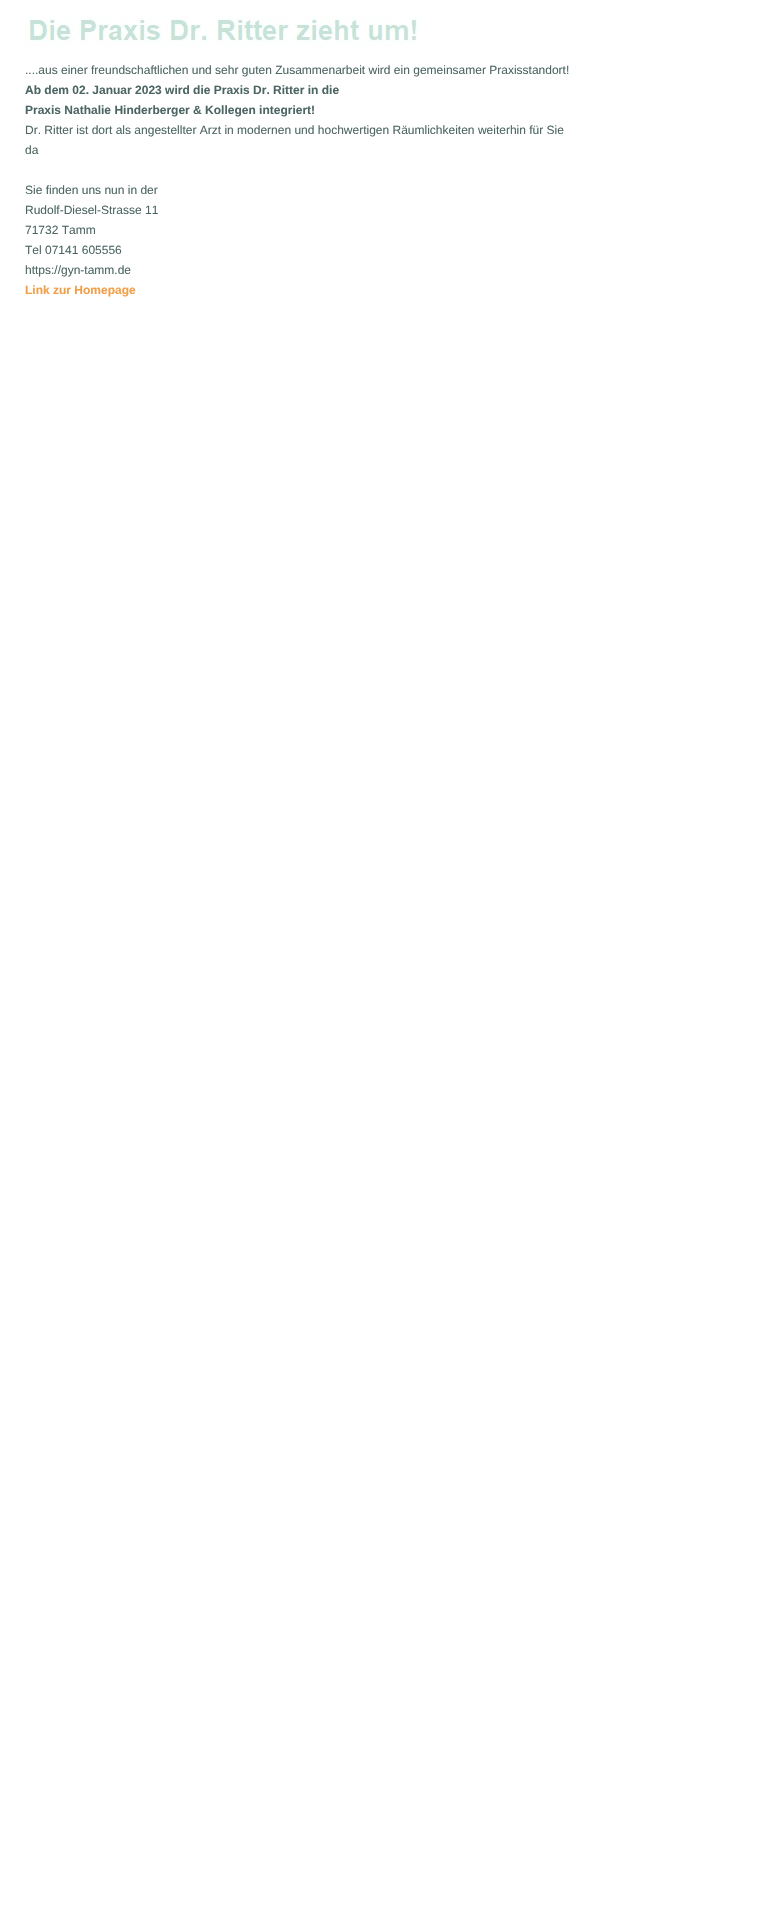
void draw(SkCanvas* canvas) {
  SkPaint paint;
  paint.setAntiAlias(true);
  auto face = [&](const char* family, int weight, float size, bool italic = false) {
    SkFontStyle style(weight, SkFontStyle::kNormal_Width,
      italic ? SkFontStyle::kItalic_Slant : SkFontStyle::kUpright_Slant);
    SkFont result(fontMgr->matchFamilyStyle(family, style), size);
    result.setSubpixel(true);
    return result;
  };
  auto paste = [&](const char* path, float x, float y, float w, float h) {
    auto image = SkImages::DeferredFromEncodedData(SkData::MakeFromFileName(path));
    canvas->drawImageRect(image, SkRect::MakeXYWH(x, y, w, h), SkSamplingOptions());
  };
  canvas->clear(0xffffffff);
  paste("img/1.png", 25, 15, 393, 32);
  auto f0 = face("Liberation Sans", 400, 12);
  paint.setColor(0xff4c6663);
  canvas->drawString("....aus einer freundschaftlichen und sehr guten Zusammenarbeit wird ein gemeinsamer Praxisstandort!", 25, 74, f0, paint);
  auto f1 = face("Liberation Sans", 700, 12);
  canvas->drawString("Ab dem 02. Januar 2023 wird die Praxis Dr. Ritter in die", 25, 94, f1, paint);
  canvas->drawString("Praxis Nathalie Hinderberger & Kollegen integriert!", 25, 114, f1, paint);
  {
    const struct { const char* s; float x, y; } items[] = {
      {"Dr. Ritter ist dort als angestellter Arzt in modernen und hochwertigen Räumlichkeiten weiterhin für Sie", 25, 134},
      {"da", 25, 154},
      {"Sie finden uns nun in der", 25, 194},
      {"Rudolf-Diesel-Strasse 11", 25, 214},
      {"71732 Tamm", 25, 234},
      {"Tel 07141 605556", 25, 254},
      {"https://gyn-tamm.de", 25, 274},
    };
    for (auto [s, x, y] : items) {
      canvas->drawString(s, x, y, f0, paint);
    }
  }
  paint.setColor(0xfff19f48);
  canvas->drawString("Link zur Homepage", 25, 294, f1, paint);
}
